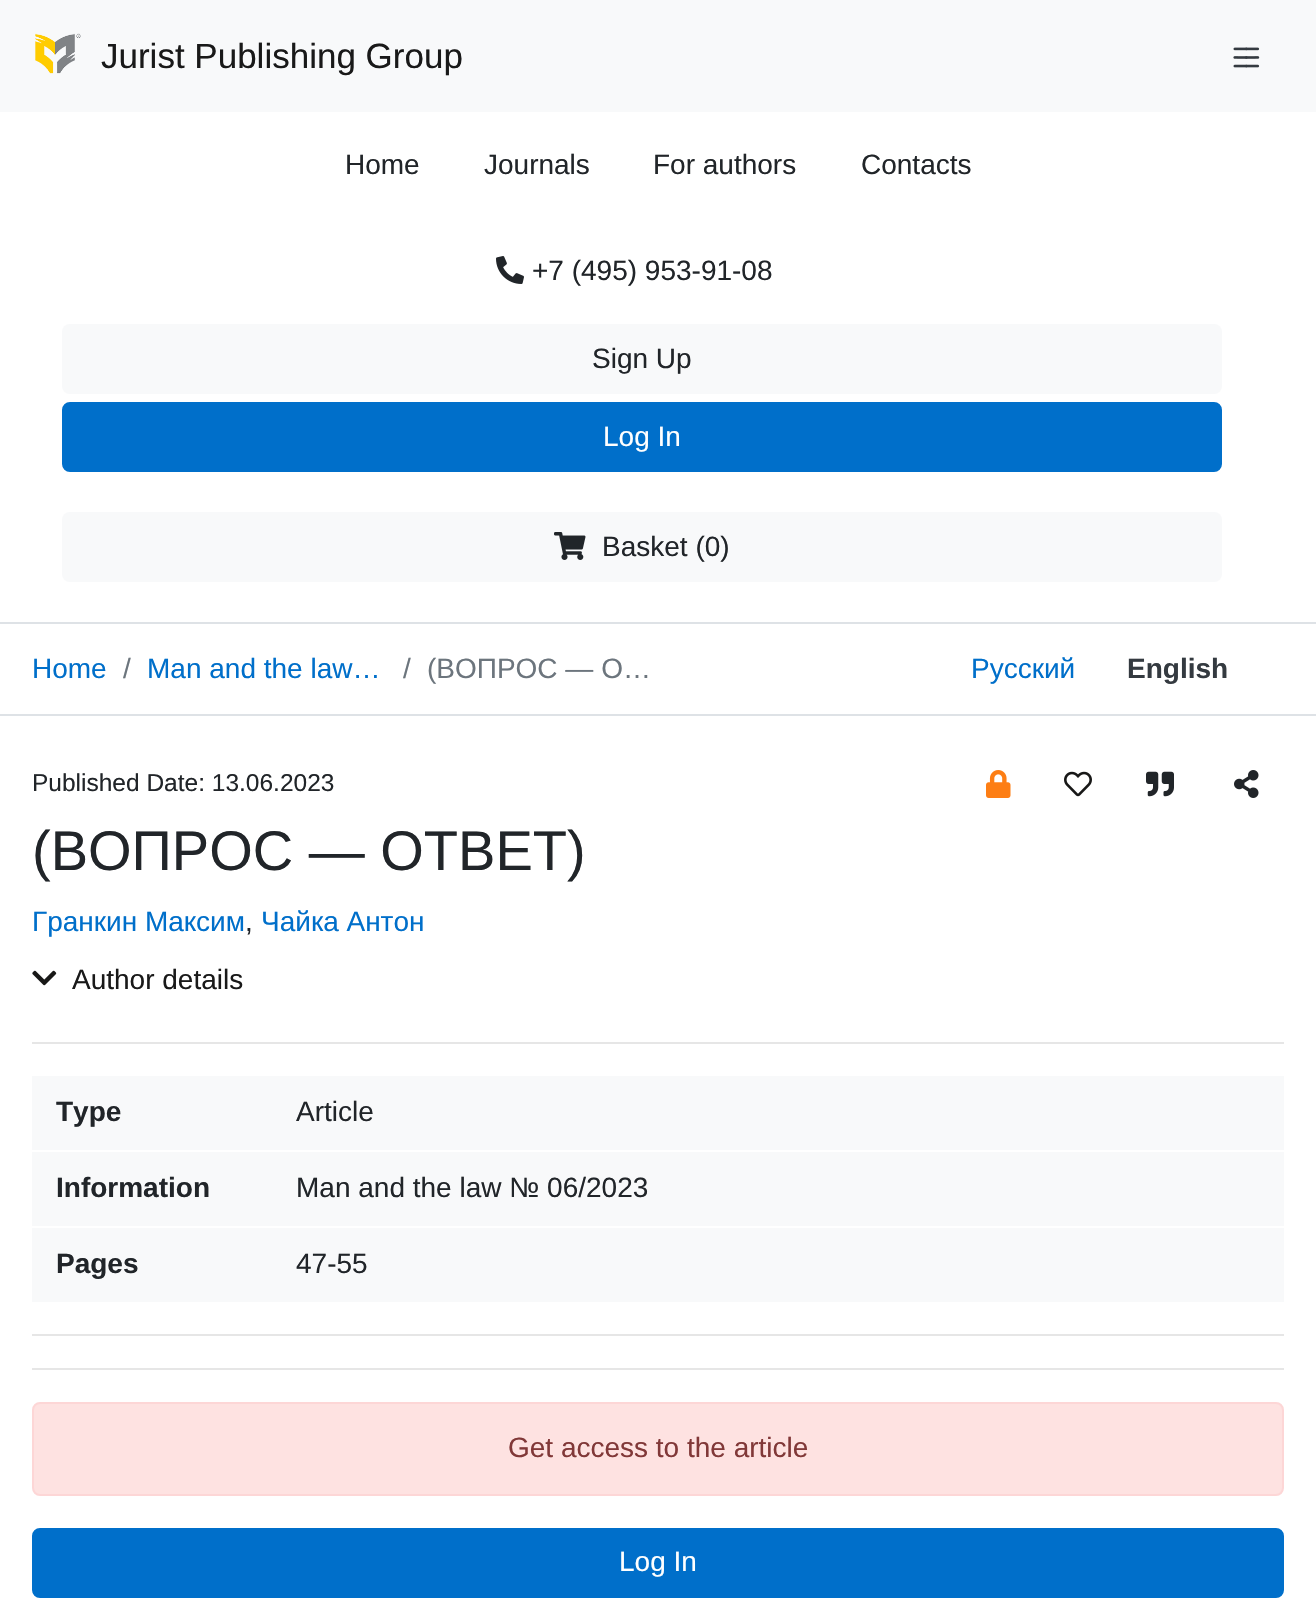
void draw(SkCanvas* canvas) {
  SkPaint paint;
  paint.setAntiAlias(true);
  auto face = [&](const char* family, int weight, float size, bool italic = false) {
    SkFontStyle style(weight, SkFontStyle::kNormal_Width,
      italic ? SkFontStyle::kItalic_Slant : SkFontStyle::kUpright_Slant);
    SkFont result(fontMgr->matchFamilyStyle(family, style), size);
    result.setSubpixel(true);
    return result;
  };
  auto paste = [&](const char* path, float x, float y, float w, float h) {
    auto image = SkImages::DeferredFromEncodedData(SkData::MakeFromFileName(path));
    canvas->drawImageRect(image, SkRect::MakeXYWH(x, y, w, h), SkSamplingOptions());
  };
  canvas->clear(0xffffffff);
  paint.setColor(0xfff8f9fa);
  canvas->drawRect(SkRect::MakeXYWH(0, 0, 1316, 112), paint);
  paste("img/1.png", 35, 33, 46, 41);
  paste("img/2.png", 1233, 47, 27, 21);
  paste("img/3.png", 496, 256, 28, 28);
  canvas->drawRoundRect(SkRect::MakeXYWH(62, 324, 1160, 70), 8, 8, paint);
  paint.setColor(0xff006fca);
  canvas->drawRoundRect(SkRect::MakeXYWH(63, 403, 1158, 68), 7, 7, paint);
  paint.setStroke(true);
  paint.setStrokeWidth(2);
  canvas->drawRoundRect(SkRect::MakeXYWH(63, 403, 1158, 68), 7, 7, paint);
  paint.setStroke(false);
  paint.setColor(0xfff8f9fa);
  canvas->drawRoundRect(SkRect::MakeXYWH(62, 512, 1160, 70), 8, 8, paint);
  paste("img/4.png", 554, 532, 32, 28);
  paint.setColor(0xffdee2e6);
  canvas->drawRect(SkRect::MakeXYWH(0, 622, 1316, 2), paint);
  canvas->drawRect(SkRect::MakeXYWH(0, 714, 1316, 2), paint);
  paste("img/5.png", 986, 770, 25, 28);
  paste("img/6.png", 1064, 771, 28, 26);
  paste("img/7.png", 1146, 771, 28, 26);
  paste("img/8.png", 1234, 770, 25, 28);
  paste("img/9.png", 32, 970, 25, 16);
  {
    const struct { float x, y, w, h; SkColor color; } items[] = {
      {32, 1042, 1252, 2, 0xffe6e6e6},
      {32, 1076, 1252, 226, 0xfff8f9fa},
      {32, 1150, 1254, 2, 0xffffffff},
      {32, 1226, 1254, 2, 0xffffffff},
      {32, 1334, 1252, 2, 0xffe6e6e6},
      {32, 1368, 1252, 2, 0xffe6e6e6},
    };
    for (auto [x, y, w, h, color] : items) {
      paint.setColor(color);
      canvas->drawRect(SkRect::MakeXYWH(x, y, w, h), paint);
    }
  }
  paint.setColor(0xfffee2e1);
  canvas->drawRoundRect(SkRect::MakeXYWH(33, 1403, 1250, 92), 7, 7, paint);
  paint.setStroke(true);
  paint.setColor(0xfffdd6d6);
  canvas->drawRoundRect(SkRect::MakeXYWH(33, 1403, 1250, 92), 7, 7, paint);
  paint.setStroke(false);
  paint.setColor(0xff006fca);
  canvas->drawRoundRect(SkRect::MakeXYWH(33, 1529, 1250, 68), 7, 7, paint);
  paint.setStroke(true);
  canvas->drawRoundRect(SkRect::MakeXYWH(33, 1529, 1250, 68), 7, 7, paint);
  auto f0 = face("Liberation Sans", 400, 35);
  paint.setStroke(false);
  paint.setColor(0xff191919);
  canvas->drawString("Jurist Publishing Group", 101, 68, f0, paint);
  auto f1 = face("Liberation Sans", 400, 28);
  paint.setColor(0xff212529);
  {
    const struct { const char* s; float x, y; } items[] = {
      {"Home", 345, 174},
      {"Journals", 484, 174},
      {"For authors", 653, 174},
      {"Contacts", 861, 174},
      {"+7 (495) 953-91-08", 532, 280},
      {"Sign Up", 592, 368},
    };
    for (auto [s, x, y] : items) {
      canvas->drawString(s, x, y, f1, paint);
    }
  }
  paint.setColor(0xffffffff);
  canvas->drawString("Log In", 603, 446, f1, paint);
  paint.setColor(0xff212529);
  canvas->drawString("Basket (0)", 602, 556, f1, paint);
  paint.setColor(0xff006fca);
  canvas->drawString("Home", 32, 678, f1, paint);
  paint.setColor(0xff6c757d);
  canvas->drawString("/", 123, 678, f1, paint);
  paint.setColor(0xff006fca);
  canvas->drawString("Man and the law…", 147, 678, f1, paint);
  paint.setColor(0xff6c757d);
  canvas->drawString("/", 403, 678, f1, paint);
  canvas->drawString("(ВОПРОС — О…", 427, 678, f1, paint);
  paint.setColor(0xff006fca);
  canvas->drawString("Русский", 971, 678, f1, paint);
  auto f2 = face("Liberation Sans", 700, 28);
  paint.setColor(0xff343a40);
  canvas->drawString("English", 1127, 678, f2, paint);
  auto f3 = face("Liberation Sans", 400, 24.5f);
  paint.setColor(0xff212529);
  canvas->drawString("Published Date: 13.06.2023", 32, 791, f3, paint);
  auto f4 = face("Liberation Sans", 400, 56);
  canvas->drawString("(ВОПРОС — ОТВЕТ)", 32, 870, f4, paint);
  paint.setColor(0xff006fca);
  canvas->drawString("Гранкин Максим", 32, 931, f1, paint);
  paint.setColor(0xff212529);
  canvas->drawString(",", 245, 931, f1, paint);
  paint.setColor(0xff006fca);
  canvas->drawString("Чайка Антон", 261, 931, f1, paint);
  paint.setColor(0xff191919);
  canvas->drawString("Author details", 72, 989, f1, paint);
  paint.setColor(0xff212529);
  canvas->drawString("Type", 56, 1121, f2, paint);
  canvas->drawString("Article", 296, 1121, f1, paint);
  canvas->drawString("Information", 56, 1197, f2, paint);
  canvas->drawString("Man and the law № 06/2023", 296, 1197, f1, paint);
  canvas->drawString("Pages", 56, 1273, f2, paint);
  canvas->drawString("47-55", 296, 1273, f1, paint);
  paint.setColor(0xff813838);
  canvas->drawString("Get access to the article", 508, 1457, f1, paint);
  paint.setColor(0xffffffff);
  canvas->drawString("Log In", 619, 1571, f1, paint);
}
